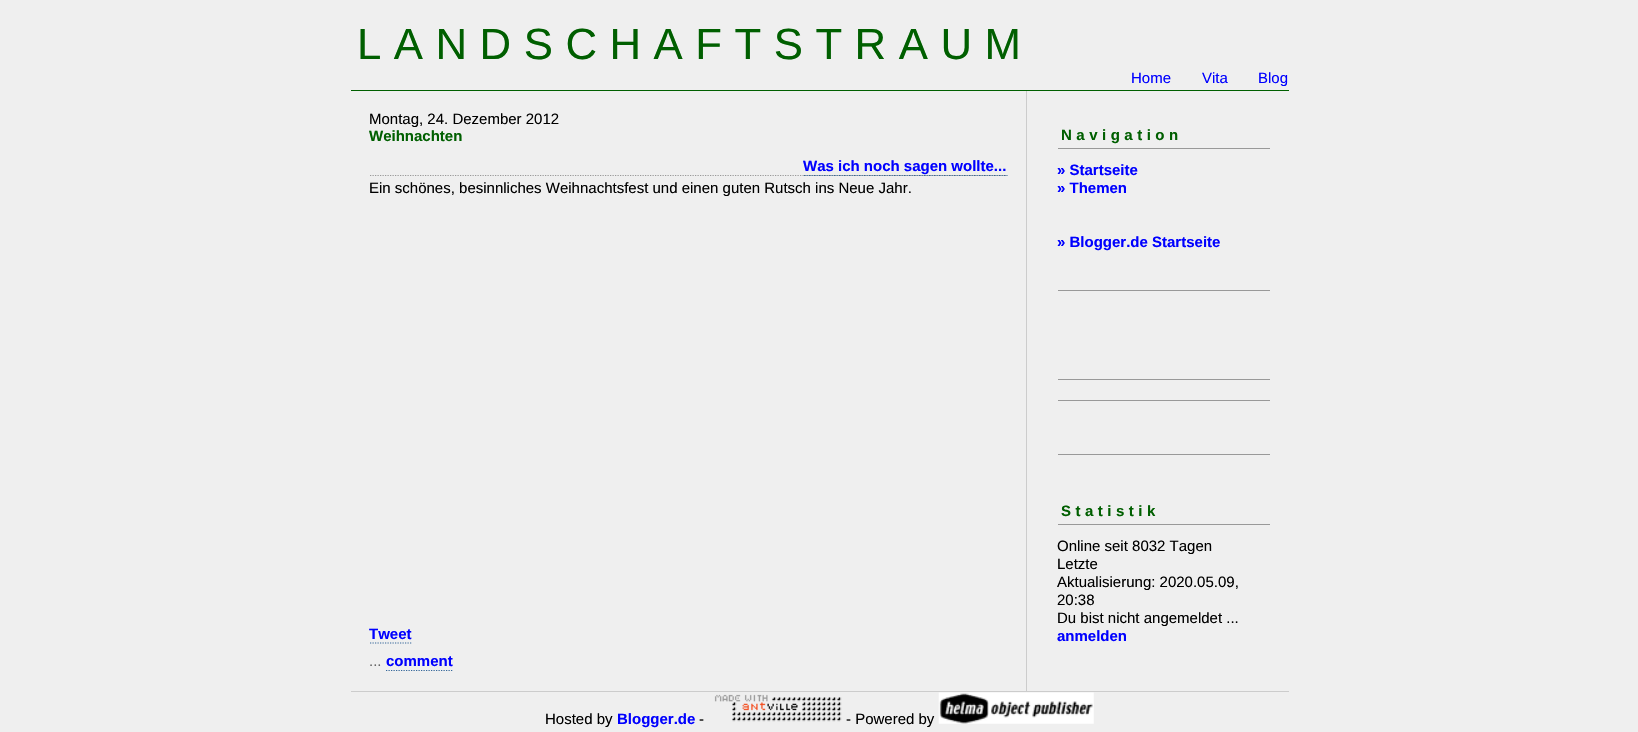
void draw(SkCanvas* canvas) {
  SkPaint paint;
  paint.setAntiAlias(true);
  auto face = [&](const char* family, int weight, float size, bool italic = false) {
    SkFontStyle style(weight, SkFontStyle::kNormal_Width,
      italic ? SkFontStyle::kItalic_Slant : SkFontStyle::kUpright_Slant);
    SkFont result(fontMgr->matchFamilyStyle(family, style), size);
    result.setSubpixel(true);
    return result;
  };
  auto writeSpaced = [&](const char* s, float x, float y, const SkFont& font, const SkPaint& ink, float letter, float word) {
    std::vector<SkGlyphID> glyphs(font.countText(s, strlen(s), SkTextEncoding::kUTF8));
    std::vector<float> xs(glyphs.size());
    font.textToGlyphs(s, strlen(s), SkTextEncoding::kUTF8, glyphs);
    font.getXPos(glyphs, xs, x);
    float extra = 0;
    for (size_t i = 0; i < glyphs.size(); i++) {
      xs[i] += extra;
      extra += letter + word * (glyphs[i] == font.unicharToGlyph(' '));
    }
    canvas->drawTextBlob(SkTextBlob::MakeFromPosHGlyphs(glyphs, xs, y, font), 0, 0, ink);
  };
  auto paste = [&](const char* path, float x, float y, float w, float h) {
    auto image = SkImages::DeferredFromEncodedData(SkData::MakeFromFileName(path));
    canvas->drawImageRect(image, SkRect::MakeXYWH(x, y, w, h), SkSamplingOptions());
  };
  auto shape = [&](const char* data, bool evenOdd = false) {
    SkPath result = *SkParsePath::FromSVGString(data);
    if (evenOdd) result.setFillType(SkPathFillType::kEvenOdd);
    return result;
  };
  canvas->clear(0xffefefef);
  paint.setColor(0xff005f00);
  canvas->drawRect(SkRect::MakeXYWH(351, 90, 938, 1), paint);
  paint.setColor(0xffcccccc);
  canvas->drawRect(SkRect::MakeXYWH(1026, 91, 1, 600), paint);
  paint.setStroke(true);
  paint.setStrokeWidth(1.2f);
  paint.setColor(0xff999999);
  paint.setPathEffect(SkDashPathEffect::Make({{1.25f, 1.25f}}, 0));
  canvas->drawPath(shape("M370 175.5H1007.5"), paint);
  paint.setPathEffect(nullptr);
  paint.setColor(0xff336699);
  paint.setPathEffect(SkDashPathEffect::Make({{1.25f, 1.25f}}, 0));
  canvas->drawPath(shape("M804 175.5H1007.5"), paint);
  paint.setPathEffect(nullptr);
  paint.setPathEffect(SkDashPathEffect::Make({{1.25f, 1.25f}}, 0));
  canvas->drawPath(shape("M370 643H412.5"), paint);
  paint.setPathEffect(nullptr);
  paint.setPathEffect(SkDashPathEffect::Make({{1.25f, 1.25f}}, 0));
  canvas->drawPath(shape("M386 670.5H452.5"), paint);
  paint.setPathEffect(nullptr);
  paint.setStroke(false);
  {
    const struct { float x, y, w, h; SkColor color; } items[] = {
      {1058, 148, 212, 1, 0xff999999},
      {1058, 290, 212, 1, 0xff999999},
      {1058, 379, 212, 1, 0xff999999},
      {1058, 400, 212, 1, 0xff999999},
      {1058, 454, 212, 1, 0xff999999},
      {1058, 524, 212, 1, 0xff999999},
      {351, 691, 938, 1, 0xffcccccc},
    };
    for (auto [x, y, w, h, color] : items) {
      paint.setColor(color);
      canvas->drawRect(SkRect::MakeXYWH(x, y, w, h), paint);
    }
  }
  paste("img/1.png", 714, 694, 128, 28);
  paste("img/2.png", 938, 692, 156, 32);
  auto f0 = face("Liberation Sans", 400, 43.75f);
  paint.setColor(0xff005f00);
  writeSpaced("LANDSCHAFTSTRAUM", 357, 59, f0, paint, 12.5f, 0);
  auto f1 = face("Liberation Sans", 400, 15);
  paint.setColor(0xff0000ff);
  {
    const struct { const char* s; float x, y; } items[] = {
      {"Home", 1131, 83},
      {"Vita", 1202, 83},
      {"Blog", 1258, 83},
    };
    for (auto [s, x, y] : items) {
      canvas->drawString(s, x, y, f1, paint);
    }
  }
  paint.setColor(0xff000000);
  canvas->drawString("Montag, 24. Dezember 2012", 369, 124, f1, paint);
  auto f2 = face("Liberation Sans", 700, 15);
  paint.setColor(0xff005f00);
  canvas->drawString("Weihnachten", 369, 141, f2, paint);
  paint.setColor(0xff0000ff);
  canvas->drawString("Was ich noch sagen wollte...", 803, 171, f2, paint);
  paint.setColor(0xff000000);
  canvas->drawString("Ein schönes, besinnliches Weihnachtsfest und einen guten Rutsch ins Neue Jahr.", 369, 193, f1, paint);
  paint.setColor(0xff0000ff);
  canvas->drawString("Tweet", 369, 639, f2, paint);
  paint.setColor(0xff666666);
  canvas->drawString("...", 369, 666, f1, paint);
  paint.setColor(0xff0000ff);
  canvas->drawString("comment", 386, 666, f2, paint);
  paint.setColor(0xff005f00);
  writeSpaced("Navigation", 1061, 140, f2, paint, 4.5f, 0);
  paint.setColor(0xff0000ff);
  {
    const struct { const char* s; float x, y; } items[] = {
      {"» Startseite", 1057, 175},
      {"» Themen", 1057, 193},
      {"» Blogger.de Startseite", 1057, 247},
    };
    for (auto [s, x, y] : items) {
      canvas->drawString(s, x, y, f2, paint);
    }
  }
  paint.setColor(0xff005f00);
  writeSpaced("Statistik", 1061, 516, f2, paint, 4.5f, 0);
  paint.setColor(0xff000000);
  {
    const struct { const char* s; float x, y; } items[] = {
      {"Online seit 8032 Tagen", 1057, 551},
      {"Letzte", 1057, 569},
      {"Aktualisierung: 2020.05.09,", 1057, 587},
      {"20:38", 1057, 605},
      {"Du bist nicht angemeldet ...", 1057, 623},
    };
    for (auto [s, x, y] : items) {
      canvas->drawString(s, x, y, f1, paint);
    }
  }
  paint.setColor(0xff0000ff);
  canvas->drawString("anmelden", 1057, 641, f2, paint);
  paint.setColor(0xff000000);
  canvas->drawString("Hosted by", 545, 724, f1, paint);
  paint.setColor(0xff0000ff);
  canvas->drawString("Blogger.de", 617, 724, f2, paint);
  paint.setColor(0xff000000);
  canvas->drawString("-", 699, 724, f1, paint);
  canvas->drawString("- Powered by", 846, 724, f1, paint);
}
